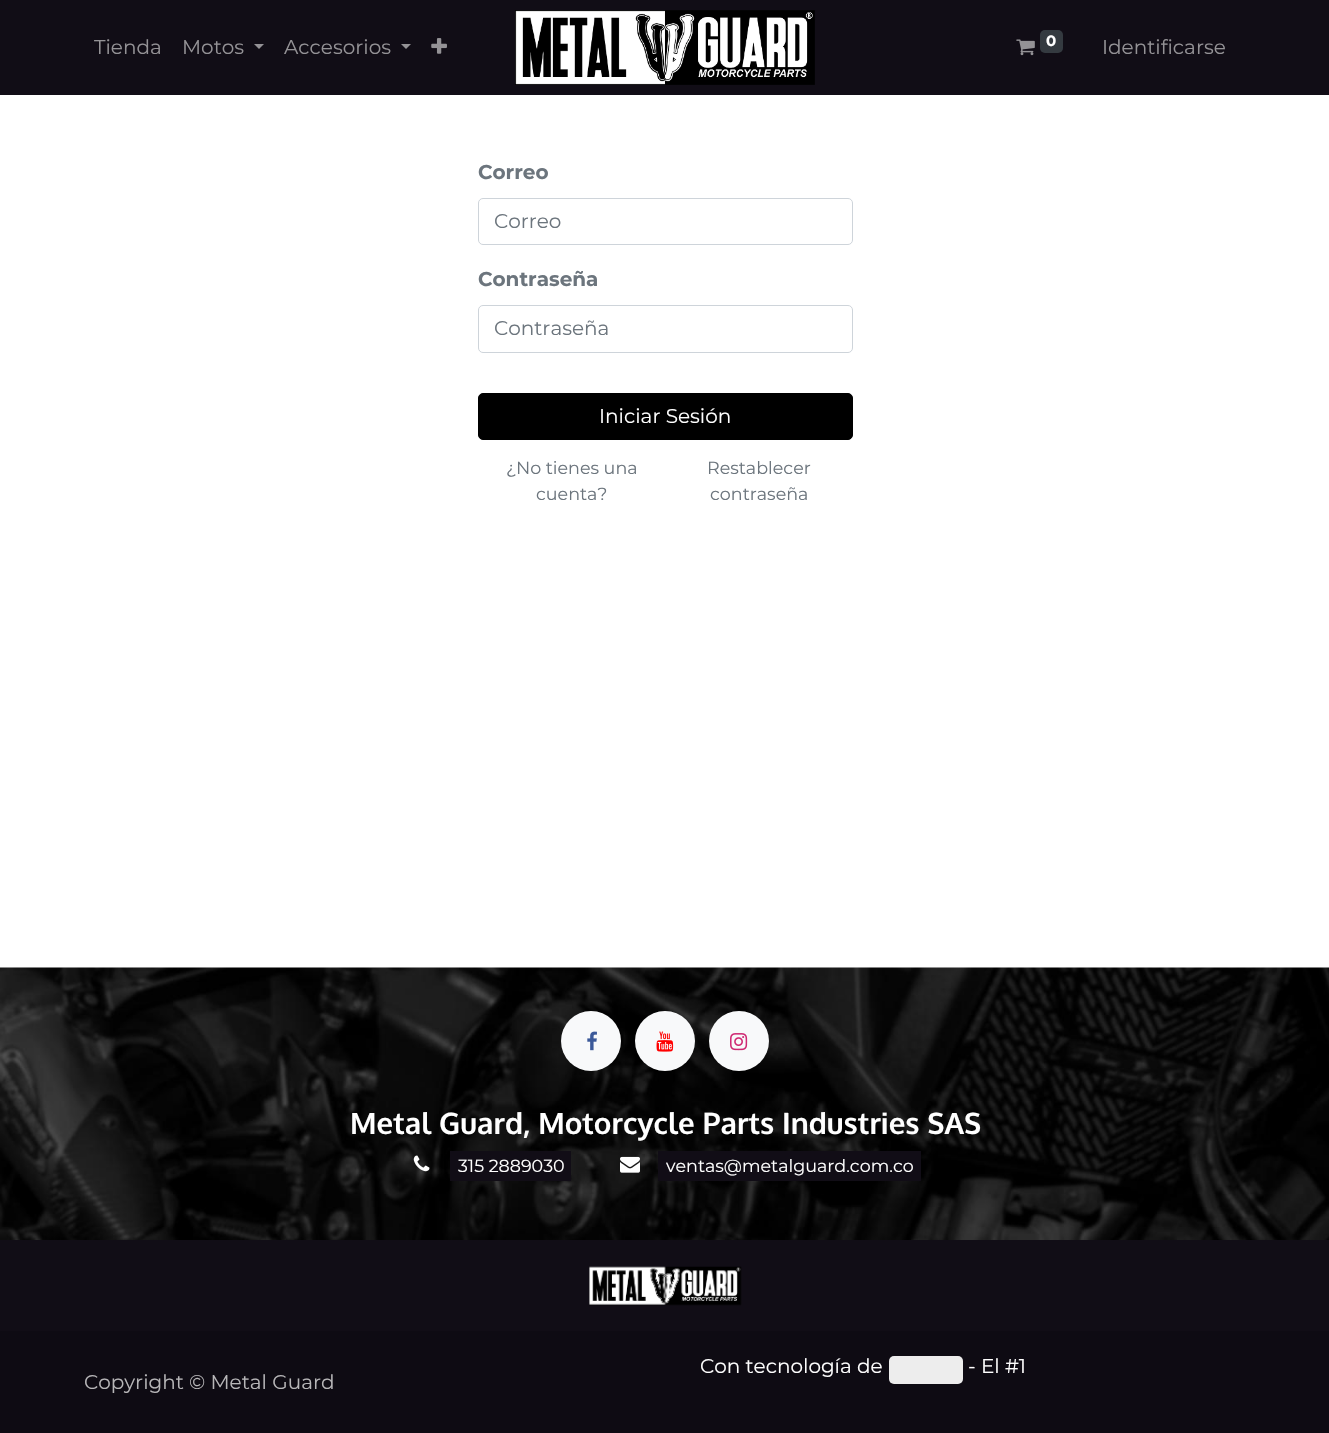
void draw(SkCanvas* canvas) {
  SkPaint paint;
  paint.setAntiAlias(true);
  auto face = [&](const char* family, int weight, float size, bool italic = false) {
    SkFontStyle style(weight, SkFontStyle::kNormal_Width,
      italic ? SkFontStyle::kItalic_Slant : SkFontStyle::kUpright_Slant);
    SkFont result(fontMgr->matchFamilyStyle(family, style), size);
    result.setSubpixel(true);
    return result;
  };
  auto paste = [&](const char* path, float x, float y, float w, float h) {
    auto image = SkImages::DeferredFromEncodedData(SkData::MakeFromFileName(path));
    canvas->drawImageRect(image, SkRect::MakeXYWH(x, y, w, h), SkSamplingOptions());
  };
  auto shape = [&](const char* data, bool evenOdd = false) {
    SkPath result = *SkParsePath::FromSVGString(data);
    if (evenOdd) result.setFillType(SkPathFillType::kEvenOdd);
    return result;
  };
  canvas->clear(0xffffffff);
  paint.setColor(0xff110d16);
  canvas->drawRect(SkRect::MakeXYWH(0, 0, 1329, 95), paint);
  paint.setColor(0xff949296);
  canvas->drawPath(shape("M254 44H264L259 49Z"), paint);
  canvas->drawPath(shape("M401 44H411L406 49Z"), paint);
  paste("img/1.png", 431, 38, 16, 16);
  paste("img/2.png", 515, 10, 300, 75);
  paste("img/3.png", 1016, 39, 19, 17);
  paint.setColor(0xff343a40);
  canvas->drawRoundRect(SkRect::MakeXYWH(1040, 30, 23, 23), 5, 5, paint);
  paint.setStroke(true);
  paint.setStrokeWidth(1);
  paint.setColor(0xffced4da);
  canvas->drawRoundRect(SkRect::MakeXYWH(478.5f, 198.5f, 374, 46), 4.5f, 4.5f, paint);
  canvas->drawRoundRect(SkRect::MakeXYWH(478.5f, 305.5f, 374, 47), 4.5f, 4.5f, paint);
  paint.setStroke(false);
  paint.setColor(0xff000000);
  canvas->drawRoundRect(SkRect::MakeXYWH(478.5f, 393.5f, 374, 46), 4.5f, 4.5f, paint);
  paint.setStroke(true);
  canvas->drawRoundRect(SkRect::MakeXYWH(478.5f, 393.5f, 374, 46), 4.5f, 4.5f, paint);
  paint.setStroke(false);
  paint.setColor(0xff110d16);
  canvas->drawRect(SkRect::MakeXYWH(0, 1240, 1329, 91), paint);
  paste("img/4.png", 0, 967, 1329, 273);
  paint.setColor(0xfff8f9fa);
  canvas->drawCircle(591, 1041, 30, paint);
  paste("img/5.png", 587, 1031, 10, 20);
  canvas->drawCircle(665, 1041, 30, paint);
  paste("img/6.png", 656, 1031, 18, 21);
  canvas->drawCircle(739, 1041, 30, paint);
  paste("img/7.png", 730, 1033, 18, 18);
  paste("img/8.png", 413, 1155, 17, 17);
  paint.setColor(0xff110d16);
  canvas->drawRect(SkRect::MakeXYWH(450, 1151, 121, 30), paint);
  paste("img/9.png", 620, 1156, 20, 17);
  canvas->drawRect(SkRect::MakeXYWH(658, 1151, 263, 30), paint);
  paste("img/10.png", 589, 1266, 153, 40);
  paint.setColor(0xff0e0b13);
  canvas->drawRect(SkRect::MakeXYWH(0, 1331, 1329, 102), paint);
  paint.setColor(0xffededed);
  canvas->drawRoundRect(SkRect::MakeXYWH(889, 1356, 74, 28), 5, 5, paint);
  auto f0 = face("Montserrat", 400, 20);
  paint.setColor(0xff949296);
  {
    const struct { const char* s; float x, y; } items[] = {
      {"Tienda", 94, 54},
      {"Motos", 182, 54},
      {"Accesorios", 284, 54},
    };
    for (auto [s, x, y] : items) {
      canvas->drawString(s, x, y, f0, paint);
    }
  }
  auto f1 = face("Montserrat", 700, 15);
  paint.setColor(0xffffffff);
  canvas->drawString("0", 1046, 46, f1, paint);
  paint.setColor(0xff949296);
  canvas->drawString("Identificarse", 1102, 54, f0, paint);
  auto f2 = face("Montserrat", 700, 20);
  paint.setColor(0xff6c757d);
  canvas->drawString("Correo", 478, 179, f2, paint);
  canvas->drawString("Correo", 494, 228, f0, paint);
  canvas->drawString("Contraseña", 478, 286, f2, paint);
  canvas->drawString("Contraseña", 494, 335, f0, paint);
  paint.setColor(0xffffffff);
  canvas->drawString("Iniciar Sesión", 599, 423, f0, paint);
  auto f3 = face("Montserrat", 400, 17.5f);
  paint.setColor(0xff6c757d);
  {
    const struct { const char* s; float x, y; } items[] = {
      {"¿No tienes una", 506, 474},
      {"cuenta?", 536, 500},
      {"Restablecer", 707, 474},
      {"contraseña", 710, 500},
    };
    for (auto [s, x, y] : items) {
      canvas->drawString(s, x, y, f3, paint);
    }
  }
  auto f4 = face("Oxygen", 700, 29.5f);
  paint.setColor(0xffffffff);
  canvas->drawString("Metal Guard, Motorcycle Parts Industries SAS", 350, 1134, f4, paint);
  canvas->drawString("315 2889030", 458, 1172, f3, paint);
  canvas->drawString("ventas@metalguard.com.co", 666, 1172, f3, paint);
  canvas->drawString("Con tecnología de", 700, 1373, f0, paint);
  canvas->drawString("- El #1", 968, 1373, f0, paint);
  paint.setColor(0xffb7b6b8);
  canvas->drawString("Copyright © Metal Guard", 84, 1389, f0, paint);
}
